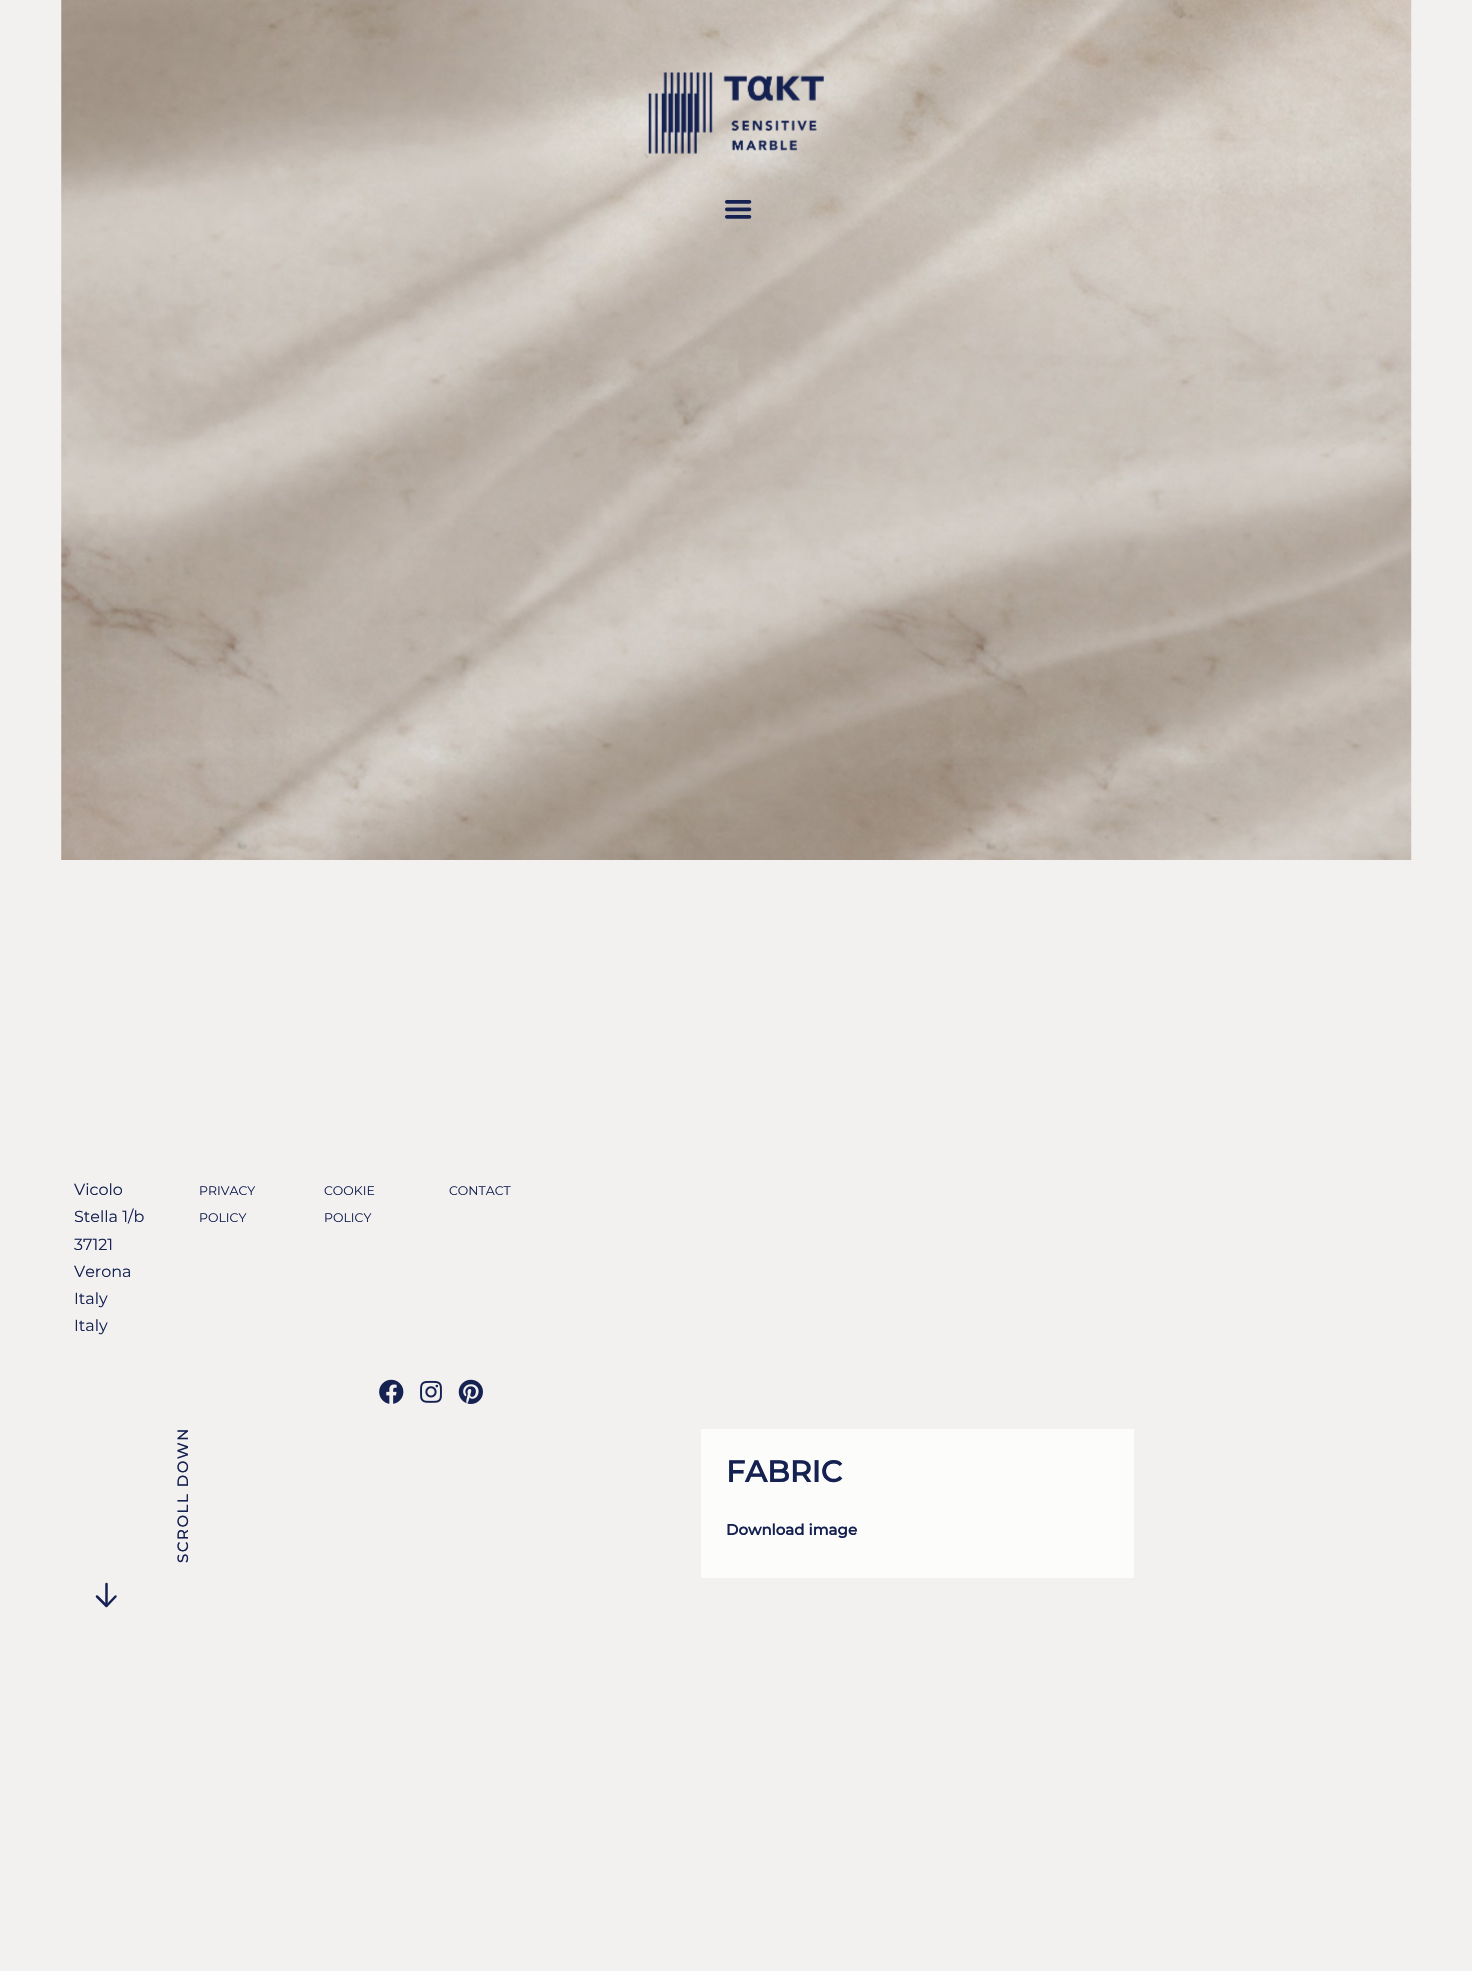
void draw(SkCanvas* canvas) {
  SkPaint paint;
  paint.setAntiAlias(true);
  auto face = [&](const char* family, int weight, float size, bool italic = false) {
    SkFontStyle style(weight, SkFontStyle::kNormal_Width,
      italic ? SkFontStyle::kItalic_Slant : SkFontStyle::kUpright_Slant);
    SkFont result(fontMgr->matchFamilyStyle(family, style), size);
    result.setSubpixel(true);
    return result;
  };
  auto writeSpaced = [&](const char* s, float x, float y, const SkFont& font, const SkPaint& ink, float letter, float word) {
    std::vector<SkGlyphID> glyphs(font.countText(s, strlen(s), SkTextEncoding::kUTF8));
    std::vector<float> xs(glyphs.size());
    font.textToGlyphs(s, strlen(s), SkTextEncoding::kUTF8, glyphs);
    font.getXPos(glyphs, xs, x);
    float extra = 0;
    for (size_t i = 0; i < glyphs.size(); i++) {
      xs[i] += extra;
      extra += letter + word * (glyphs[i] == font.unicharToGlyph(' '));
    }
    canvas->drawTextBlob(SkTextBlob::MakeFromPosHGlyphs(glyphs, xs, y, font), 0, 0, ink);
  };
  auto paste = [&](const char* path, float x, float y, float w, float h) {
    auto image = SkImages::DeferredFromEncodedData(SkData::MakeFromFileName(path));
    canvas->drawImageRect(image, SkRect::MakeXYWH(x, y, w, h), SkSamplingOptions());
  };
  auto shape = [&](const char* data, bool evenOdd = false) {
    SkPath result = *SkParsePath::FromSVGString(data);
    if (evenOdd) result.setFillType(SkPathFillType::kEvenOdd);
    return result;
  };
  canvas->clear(0xfff3f1f0);
  paste("img/6.png", 61, 0, 1351, 860);
  paste("img/1.png", 648, 72, 176, 82);
  paste("img/2.png", 725, 200, 27, 19);
  paste("img/3.png", 379, 1379, 25, 25);
  paste("img/4.png", 420, 1380, 22, 23);
  paste("img/5.png", 458, 1379, 25, 25);
  paint.setStroke(true);
  paint.setStrokeWidth(2.5f);
  paint.setStrokeCap(SkPaint::kRound_Cap);
  paint.setStrokeJoin(SkPaint::kRound_Join);
  paint.setColor(0xff142151);
  canvas->drawPath(shape("M97 1596.5L106.5 1606L115.5 1596.5"), paint);
  paint.setStrokeJoin(SkPaint::kMiter_Join);
  canvas->drawPath(shape("M106.5 1584V1603"), paint);
  paint.setStroke(false);
  paint.setColor(0xfffcfcfb);
  canvas->drawRect(SkRect::MakeXYWH(701, 1429, 433, 149), paint);
  auto f0 = face("Montserrat", 400, 16);
  paint.setColor(0xff142151);
  {
    const struct { const char* s; float x, y; } items[] = {
      {"Vicolo", 74, 1195},
      {"Stella 1/b", 74, 1222},
      {"37121", 74, 1250},
      {"Verona", 74, 1277},
      {"Italy", 74, 1304},
      {"Italy", 74, 1331},
    };
    for (auto [s, x, y] : items) {
      canvas->drawString(s, x, y, f0, paint);
    }
  }
  auto f1 = face("Montserrat", 400, 12.5f);
  {
    const struct { const char* s; float x, y; } items[] = {
      {"PRIVACY", 199, 1195},
      {"POLICY", 199, 1222},
      {"COOKIE", 324, 1195},
      {"POLICY", 324, 1222},
      {"CONTACT", 449, 1195},
    };
    for (auto [s, x, y] : items) {
      canvas->drawString(s, x, y, f1, paint);
    }
  }
  auto f2 = face("Montserrat", 500, 15);
  canvas->save();
  canvas->rotate(-90, 188, 1563);
  writeSpaced("SCROLL DOWN", 188, 1563, f2, paint, 1.5f, 0);
  canvas->restore();
  auto f3 = face("Montserrat", 700, 30);
  canvas->drawString("FABRIC", 726, 1482, f3, paint);
  auto f4 = face("Montserrat", 700, 15);
  canvas->drawString("Download image", 726, 1535, f4, paint);
}
